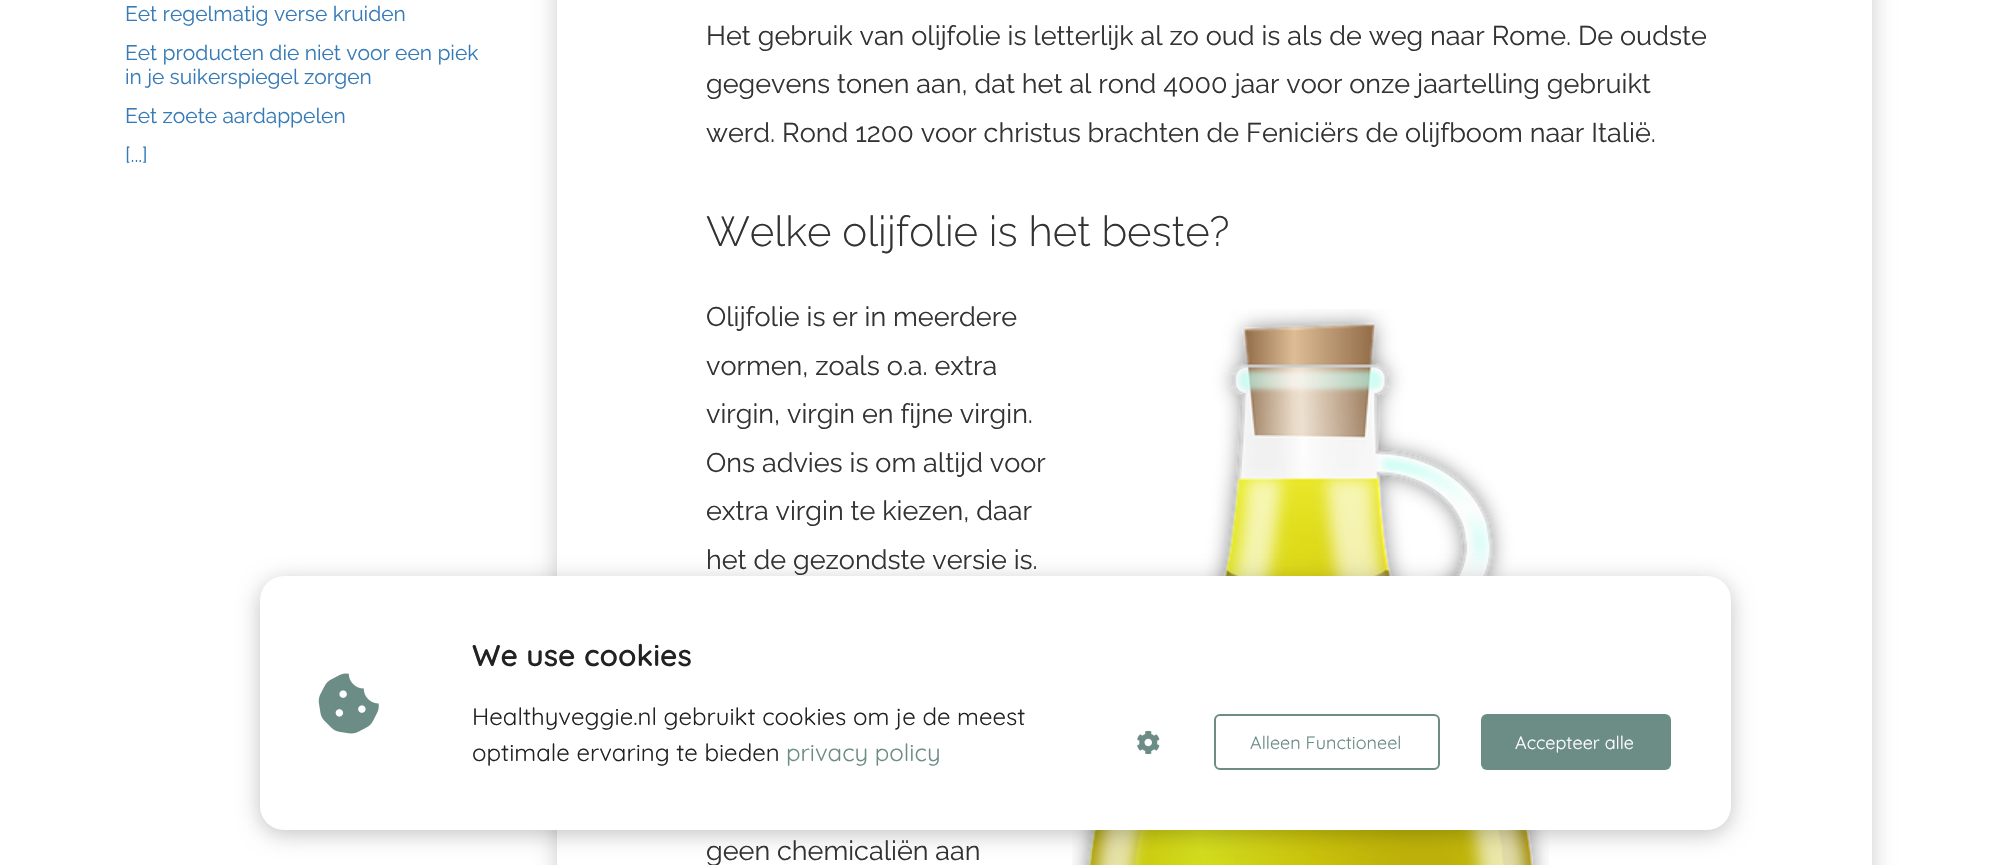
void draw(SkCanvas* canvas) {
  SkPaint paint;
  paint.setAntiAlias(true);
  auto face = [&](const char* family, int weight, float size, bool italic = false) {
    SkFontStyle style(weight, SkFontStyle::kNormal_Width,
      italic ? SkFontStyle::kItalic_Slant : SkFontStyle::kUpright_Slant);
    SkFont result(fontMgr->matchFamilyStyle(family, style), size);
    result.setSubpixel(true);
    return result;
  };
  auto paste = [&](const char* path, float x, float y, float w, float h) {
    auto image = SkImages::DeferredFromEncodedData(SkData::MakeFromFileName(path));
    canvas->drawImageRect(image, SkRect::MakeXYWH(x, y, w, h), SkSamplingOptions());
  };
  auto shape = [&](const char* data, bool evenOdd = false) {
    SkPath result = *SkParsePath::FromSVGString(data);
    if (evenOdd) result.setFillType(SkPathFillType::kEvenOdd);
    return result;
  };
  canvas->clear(0xffffffff);
  canvas->save();
  canvas->clipPath(shape("M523 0H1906V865H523ZM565-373H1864C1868.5-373 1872-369.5 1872-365V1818C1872 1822.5 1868.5 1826 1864 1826H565C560.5 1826 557 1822.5 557 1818V-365C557-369.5 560.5-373 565-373Z", true), true);
  paint.setColor(0x33000000);
  paint.setMaskFilter(SkMaskFilter::MakeBlur(kNormal_SkBlurStyle, 11));
  canvas->drawRoundRect(SkRect::MakeXYWH(557, -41, 1315, 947), 8, 8, paint);
  paint.setMaskFilter(nullptr);
  canvas->restore();
  paste("img/1.png", 1072, 309, 477, 556);
  paint.setColor(0x3d000000);
  paint.setMaskFilter(SkMaskFilter::MakeBlur(kNormal_SkBlurStyle, 11));
  canvas->drawRoundRect(SkRect::MakeXYWH(260, 581, 1471, 253), 24, 24, paint);
  paint.setMaskFilter(nullptr);
  paint.setColor(0xffffffff);
  canvas->drawRoundRect(SkRect::MakeXYWH(260, 576, 1471, 254), 24, 24, paint);
  paste("img/2.png", 318, 673, 61, 61);
  paste("img/3.png", 1137, 730, 23, 25);
  paint.setStroke(true);
  paint.setStrokeWidth(2);
  paint.setColor(0xff6c8c86);
  canvas->drawRoundRect(SkRect::MakeXYWH(1215, 715, 224, 54), 5, 5, paint);
  paint.setStroke(false);
  canvas->drawRoundRect(SkRect::MakeXYWH(1481, 714, 190, 56), 6, 6, paint);
  auto f0 = face("Raleway", 400, 21);
  paint.setColor(0xff367bb8);
  {
    const struct { const char* s; float x, y; } items[] = {
      {"Eet regelmatig verse kruiden", 125, 21},
      {"Eet producten die niet voor een piek", 125, 60},
      {"in je suikerspiegel zorgen", 125, 84},
      {"Eet zoete aardappelen", 125, 123},
      {"[...]", 125, 162},
    };
    for (auto [s, x, y] : items) {
      canvas->drawString(s, x, y, f0, paint);
    }
  }
  auto f1 = face("Raleway", 400, 27);
  paint.setColor(0xff333333);
  {
    const struct { const char* s; float x, y; } items[] = {
      {"Het gebruik van olijfolie is letterlijk al zo oud is als de weg naar Rome. De oudste", 706, 45},
      {"gegevens tonen aan, dat het al rond 4000 jaar voor onze jaartelling gebruikt", 706, 93},
      {"werd. Rond 1200 voor christus brachten de Feniciërs de olijfboom naar Italië.", 706, 142},
    };
    for (auto [s, x, y] : items) {
      canvas->drawString(s, x, y, f1, paint);
    }
  }
  auto f2 = face("Raleway", 300, 42);
  canvas->drawString("Welke olijfolie is het beste?", 706, 246, f2, paint);
  {
    const struct { const char* s; float x, y; } items[] = {
      {"Olijfolie is er in meerdere", 706, 326},
      {"vormen, zoals o.a. extra", 706, 375},
      {"virgin, virgin en fijne virgin.", 706, 423},
      {"Ons advies is om altijd voor", 706, 472},
      {"extra virgin te kiezen, daar", 706, 520},
      {"het de gezondste versie is.", 706, 569},
      {"geen chemicaliën aan", 706, 860},
    };
    for (auto [s, x, y] : items) {
      canvas->drawString(s, x, y, f1, paint);
    }
  }
  auto f3 = face("Quicksand", 600, 30);
  paint.setColor(0xff222222);
  canvas->drawString("We use cookies", 472, 666, f3, paint);
  auto f4 = face("Quicksand", 400, 24);
  canvas->drawString("Healthyveggie.nl gebruikt cookies om je de meest", 472, 725, f4, paint);
  canvas->drawString("optimale ervaring te bieden", 472, 761, f4, paint);
  paint.setColor(0xff6c8c86);
  canvas->drawString("privacy policy", 786, 761, f4, paint);
  auto f5 = face("Quicksand", 400, 18);
  canvas->drawString("Alleen Functioneel", 1250, 749, f5, paint);
  paint.setColor(0xffffffff);
  canvas->drawString("Accepteer alle", 1515, 749, f5, paint);
}
